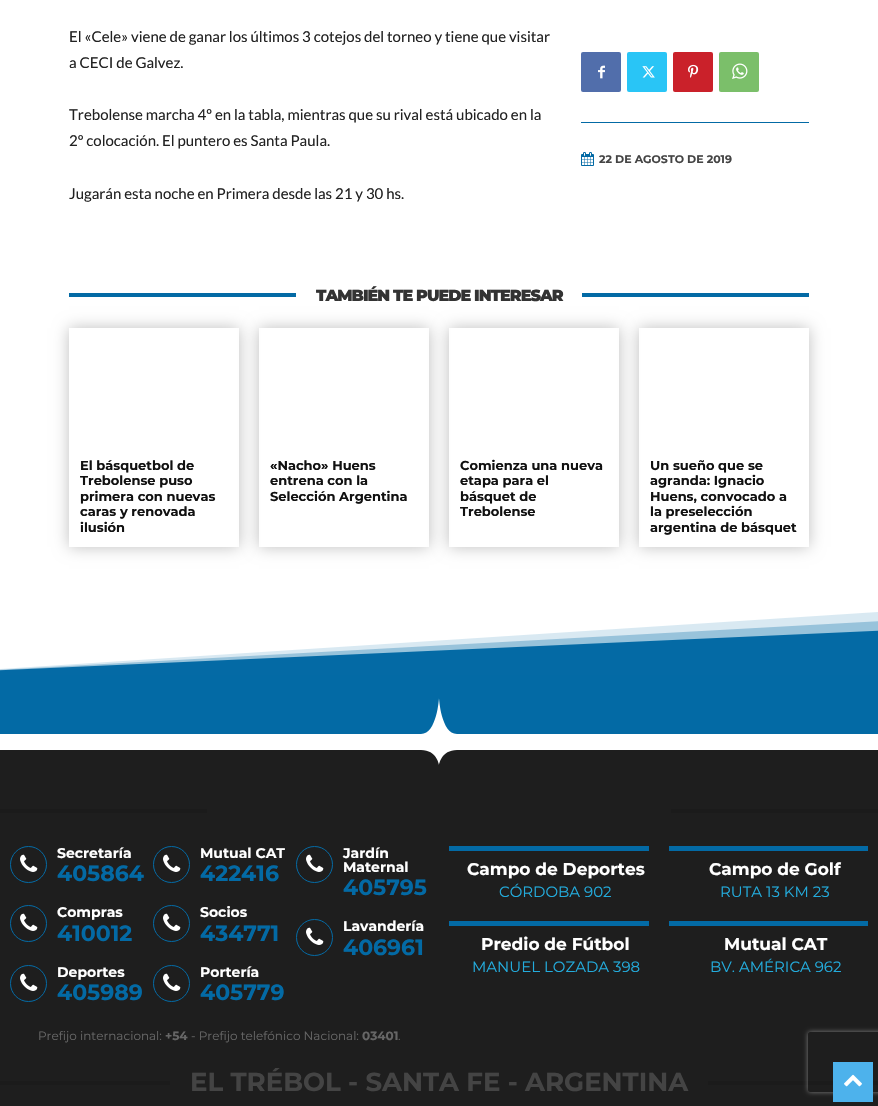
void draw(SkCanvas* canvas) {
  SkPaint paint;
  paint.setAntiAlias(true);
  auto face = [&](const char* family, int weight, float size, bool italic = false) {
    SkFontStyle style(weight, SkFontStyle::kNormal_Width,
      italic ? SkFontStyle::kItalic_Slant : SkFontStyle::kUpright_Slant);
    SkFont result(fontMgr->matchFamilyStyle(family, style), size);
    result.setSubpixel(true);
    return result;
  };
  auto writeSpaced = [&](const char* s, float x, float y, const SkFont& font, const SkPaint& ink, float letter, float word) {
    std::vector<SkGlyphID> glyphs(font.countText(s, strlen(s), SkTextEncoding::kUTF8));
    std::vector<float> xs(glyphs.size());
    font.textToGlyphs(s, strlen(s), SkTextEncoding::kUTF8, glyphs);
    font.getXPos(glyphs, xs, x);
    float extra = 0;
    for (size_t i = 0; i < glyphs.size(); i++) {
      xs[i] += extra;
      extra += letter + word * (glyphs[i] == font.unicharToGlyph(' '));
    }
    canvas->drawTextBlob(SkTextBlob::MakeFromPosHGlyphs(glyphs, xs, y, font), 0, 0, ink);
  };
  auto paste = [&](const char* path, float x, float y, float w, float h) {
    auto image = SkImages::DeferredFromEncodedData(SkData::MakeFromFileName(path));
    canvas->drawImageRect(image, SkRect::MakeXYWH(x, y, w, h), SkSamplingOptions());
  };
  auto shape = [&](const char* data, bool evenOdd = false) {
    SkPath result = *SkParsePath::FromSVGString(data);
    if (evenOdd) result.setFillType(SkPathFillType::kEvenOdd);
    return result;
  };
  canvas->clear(0xffffffff);
  paint.setColor(0xff516eab);
  canvas->drawRoundRect(SkRect::MakeXYWH(581, 52, 40, 40), 2, 2, paint);
  paste("img/1.png", 598, 65, 7, 14);
  paint.setColor(0xff29c5f6);
  canvas->drawRoundRect(SkRect::MakeXYWH(627, 52, 40, 40), 2, 2, paint);
  paste("img/2.png", 642, 66, 13, 12);
  paint.setColor(0xffca212a);
  canvas->drawRoundRect(SkRect::MakeXYWH(673, 52, 40, 40), 2, 2, paint);
  paste("img/3.png", 688, 64, 11, 14);
  paint.setColor(0xff7bbf6a);
  canvas->drawRoundRect(SkRect::MakeXYWH(719, 52, 40, 40), 2, 2, paint);
  paste("img/4.png", 732, 63, 16, 16);
  paint.setColor(0xff036aa5);
  canvas->drawRect(SkRect::MakeXYWH(581, 122, 228, 1), paint);
  paste("img/5.png", 581, 152, 13, 14);
  canvas->drawRect(SkRect::MakeXYWH(69, 293, 227, 4), paint);
  canvas->drawRect(SkRect::MakeXYWH(582, 293, 227, 4), paint);
  canvas->save();
  canvas->clipPath(shape("M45 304H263V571H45ZM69 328H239V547H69Z", true), true);
  paint.setColor(0x40000000);
  paint.setMaskFilter(SkMaskFilter::MakeBlur(kNormal_SkBlurStyle, 7.5f));
  canvas->drawRect(SkRect::MakeXYWH(69, 328, 170, 219), paint);
  paint.setMaskFilter(nullptr);
  canvas->restore();
  canvas->save();
  canvas->clipPath(shape("M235 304H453V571H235ZM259 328H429V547H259Z", true), true);
  paint.setMaskFilter(SkMaskFilter::MakeBlur(kNormal_SkBlurStyle, 7.5f));
  canvas->drawRect(SkRect::MakeXYWH(259, 328, 170, 219), paint);
  paint.setMaskFilter(nullptr);
  canvas->restore();
  canvas->save();
  canvas->clipPath(shape("M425 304H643V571H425ZM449 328H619V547H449Z", true), true);
  paint.setMaskFilter(SkMaskFilter::MakeBlur(kNormal_SkBlurStyle, 7.5f));
  canvas->drawRect(SkRect::MakeXYWH(449, 328, 170, 219), paint);
  paint.setMaskFilter(nullptr);
  canvas->restore();
  canvas->save();
  canvas->clipPath(shape("M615 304H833V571H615ZM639 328H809V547H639Z", true), true);
  paint.setMaskFilter(SkMaskFilter::MakeBlur(kNormal_SkBlurStyle, 7.5f));
  canvas->drawRect(SkRect::MakeXYWH(639, 328, 170, 219), paint);
  paint.setMaskFilter(nullptr);
  canvas->restore();
  canvas->save();
  canvas->clipRect(SkRect::MakeXYWH(0, 595, 878, 80));
  paint.setColor(0xff036aa5);
  canvas->drawPath(shape("M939 751V628L-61 673V751Z"), paint);
  paint.setColor(0x4d036aa5);
  canvas->drawPath(shape("M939 751V618L-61 673V751Z"), paint);
  paint.setColor(0x26036aa5);
  canvas->drawPath(shape("M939 751V608L-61 673V751Z"), paint);
  canvas->restore();
  canvas->save();
  canvas->clipRect(SkRect::MakeXYWH(0, 675, 878, 100));
  paint.setColor(0xff036aa5);
  canvas->drawPath(shape("M-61 542V734H421C437 734 439 698 439 698C439 698 441 734 457 734H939V542Z"), paint);
  canvas->restore();
  paint.setColor(0xff1e1e1e);
  canvas->drawPath(shape("M-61 830V750H421C437 750 439 765 439 765C439 765 441 750 457 750H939V830Z"), paint);
  {
    const struct { float x, y, w, h; SkColor color; } items[] = {
      {0, 809, 207, 4, 0xff1b1b1b},
      {671, 809, 207, 4, 0xff1b1b1b},
      {0, 830, 878, 276, 0xff1e1e1e},
    };
    for (auto [x, y, w, h, color] : items) {
      paint.setColor(color);
      canvas->drawRect(SkRect::MakeXYWH(x, y, w, h), paint);
    }
  }
  paint.setStroke(true);
  paint.setStrokeWidth(1);
  paint.setColor(0xff036aa5);
  canvas->drawCircle(28.5f, 864.5f, 18, paint);
  paste("img/6.png", 20, 854, 18, 18);
  canvas->drawCircle(28.5f, 923.5f, 18, paint);
  paste("img/6.png", 20, 913, 18, 18);
  canvas->drawCircle(28.5f, 983.5f, 18, paint);
  paste("img/6.png", 20, 973, 18, 18);
  canvas->drawCircle(171.5f, 864.5f, 18, paint);
  paste("img/6.png", 163, 854, 18, 18);
  canvas->drawCircle(171.5f, 923.5f, 18, paint);
  paste("img/6.png", 163, 913, 18, 18);
  canvas->drawCircle(171.5f, 983.5f, 18, paint);
  paste("img/6.png", 163, 973, 18, 18);
  canvas->drawCircle(314.5f, 864.5f, 18, paint);
  paste("img/6.png", 306, 854, 18, 18);
  canvas->drawCircle(314.5f, 937.5f, 18, paint);
  paste("img/6.png", 306, 927, 18, 18);
  paint.setStroke(false);
  {
    const struct { float x, y, w, h; SkColor color; } items[] = {
      {449, 846, 200, 5, 0xff036aa5},
      {449, 921, 200, 5, 0xff036aa5},
      {669, 846, 199, 5, 0xff036aa5},
      {669, 921, 199, 5, 0xff036aa5},
      {0, 1081, 170, 4, 0xff1b1b1b},
      {708, 1081, 170, 4, 0xff1b1b1b},
    };
    for (auto [x, y, w, h, color] : items) {
      paint.setColor(color);
      canvas->drawRect(SkRect::MakeXYWH(x, y, w, h), paint);
    }
  }
  canvas->save();
  canvas->clipPath(shape("M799 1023H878V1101H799ZM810 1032H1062C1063 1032 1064 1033 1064 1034V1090C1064 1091 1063 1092 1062 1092H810C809 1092 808 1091 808 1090V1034C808 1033 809 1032 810 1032Z", true), true);
  paint.setColor(0xff808080);
  paint.setMaskFilter(SkMaskFilter::MakeBlur(kNormal_SkBlurStyle, 2.5f));
  canvas->drawRoundRect(SkRect::MakeXYWH(808, 1032, 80, 60), 2, 2, paint);
  paint.setMaskFilter(nullptr);
  canvas->restore();
  paint.setColor(0xff4db2ec);
  canvas->drawRect(SkRect::MakeXYWH(833, 1062, 40, 40), paint);
  paste("img/7.png", 844, 1074, 18, 13);
  auto f0 = face("Lato", 400, 15);
  paint.setColor(0xff222222);
  {
    const struct { const char* s; float x, y; } items[] = {
      {"El «Cele» viene de ganar los últimos 3 cotejos del torneo y tiene que visitar", 69, 42},
      {"a CECI de Galvez.", 69, 68},
      {"Trebolense marcha 4º en la tabla, mientras que su rival está ubicado en la", 69, 120},
      {"2º colocación. El puntero es Santa Paula.", 69, 146},
      {"Jugarán esta noche en Primera desde las 21 y 30 hs.", 69, 199},
    };
    for (auto [s, x, y] : items) {
      canvas->drawString(s, x, y, f0, paint);
    }
  }
  auto f1 = face("Montserrat", 700, 11);
  paint.setColor(0xff444444);
  canvas->drawString("22 DE AGOSTO DE 2019", 599, 163, f1, paint);
  auto f2 = face("Montserrat", 900, 16);
  paint.setColor(0xff333333);
  writeSpaced("TAMBIÉN TE PUEDE INTERESAR", 316, 301, f2, paint, -1, 0);
  auto f3 = face("Montserrat", 700, 13);
  paint.setColor(0xff111111);
  {
    const struct { const char* s; float x, y; } items[] = {
      {"El básquetbol de", 80, 470},
      {"Trebolense puso", 80, 485},
      {"primera con nuevas", 80, 501},
      {"caras y renovada", 80, 516},
      {"ilusión", 80, 532},
      {"«Nacho» Huens", 270, 470},
      {"entrena con la", 270, 485},
      {"Selección Argentina", 270, 501},
      {"Comienza una nueva", 460, 470},
      {"etapa para el", 460, 485},
      {"básquet de", 460, 501},
      {"Trebolense", 460, 516},
      {"Un sueño que se", 650, 470},
      {"agranda: Ignacio", 650, 485},
      {"Huens, convocado a", 650, 501},
      {"la preselección", 650, 516},
      {"argentina de básquet", 650, 532},
    };
    for (auto [s, x, y] : items) {
      canvas->drawString(s, x, y, f3, paint);
    }
  }
  auto f4 = face("Montserrat", 700, 14);
  paint.setColor(0xffffffff);
  canvas->drawString("Secretaría", 57, 858, f4, paint);
  auto f5 = face("Montserrat", 700, 22);
  paint.setColor(0xff036aa5);
  canvas->drawString("405864", 57, 881, f5, paint);
  paint.setColor(0xffffffff);
  canvas->drawString("Compras", 57, 917, f4, paint);
  paint.setColor(0xff036aa5);
  canvas->drawString("410012", 57, 941, f5, paint);
  paint.setColor(0xffffffff);
  canvas->drawString("Deportes", 57, 977, f4, paint);
  paint.setColor(0xff036aa5);
  canvas->drawString("405989", 57, 1000, f5, paint);
  paint.setColor(0xffffffff);
  canvas->drawString("Mutual CAT", 200, 858, f4, paint);
  paint.setColor(0xff036aa5);
  canvas->drawString("422416", 200, 881, f5, paint);
  paint.setColor(0xffffffff);
  canvas->drawString("Socios", 200, 917, f4, paint);
  paint.setColor(0xff036aa5);
  canvas->drawString("434771", 200, 941, f5, paint);
  paint.setColor(0xffffffff);
  canvas->drawString("Portería", 200, 977, f4, paint);
  paint.setColor(0xff036aa5);
  canvas->drawString("405779", 200, 1000, f5, paint);
  paint.setColor(0xffffffff);
  canvas->drawString("Jardín", 343, 858, f4, paint);
  canvas->drawString("Maternal", 343, 872, f4, paint);
  paint.setColor(0xff036aa5);
  canvas->drawString("405795", 343, 895, f5, paint);
  paint.setColor(0xffffffff);
  canvas->drawString("Lavandería", 343, 931, f4, paint);
  paint.setColor(0xff036aa5);
  canvas->drawString("406961", 343, 955, f5, paint);
  auto f6 = face("Montserrat", 400, 12);
  paint.setColor(0xff666666);
  canvas->drawString("Prefijo internacional:", 38, 1040, f6, paint);
  auto f7 = face("Montserrat", 700, 12);
  canvas->drawString("+54", 165, 1040, f7, paint);
  canvas->drawString("- Prefijo telefónico Nacional:", 191, 1040, f6, paint);
  canvas->drawString("03401", 362, 1040, f7, paint);
  canvas->drawString(".", 398, 1040, f6, paint);
  auto f8 = face("Montserrat", 700, 17);
  paint.setColor(0xffffffff);
  canvas->drawString("Campo de Deportes", 467, 875, f8, paint);
  auto f9 = face("Montserrat", 400, 15);
  paint.setColor(0xff23acdd);
  canvas->drawString("CÓRDOBA 902", 499, 897, f9, paint);
  paint.setColor(0xffffffff);
  canvas->drawString("Predio de Fútbol", 481, 950, f8, paint);
  paint.setColor(0xff23acdd);
  canvas->drawString("MANUEL LOZADA 398", 472, 972, f9, paint);
  paint.setColor(0xffffffff);
  canvas->drawString("Campo de Golf", 709, 875, f8, paint);
  paint.setColor(0xff23acdd);
  canvas->drawString("RUTA 13 KM 23", 720, 897, f9, paint);
  paint.setColor(0xffffffff);
  canvas->drawString("Mutual CAT", 724, 950, f8, paint);
  paint.setColor(0xff23acdd);
  canvas->drawString("BV. AMÉRICA 962", 710, 972, f9, paint);
  canvas->save();
  canvas->clipRect(SkRect::MakeXYWH(0, 1068, 878, 31));
  auto f10 = face("Montserrat", 700, 26);
  paint.setColor(0xff444444);
  canvas->drawString("EL TRÉBOL - SANTA FE - ARGENTINA", 190, 1091, f10, paint);
  canvas->restore();
}
